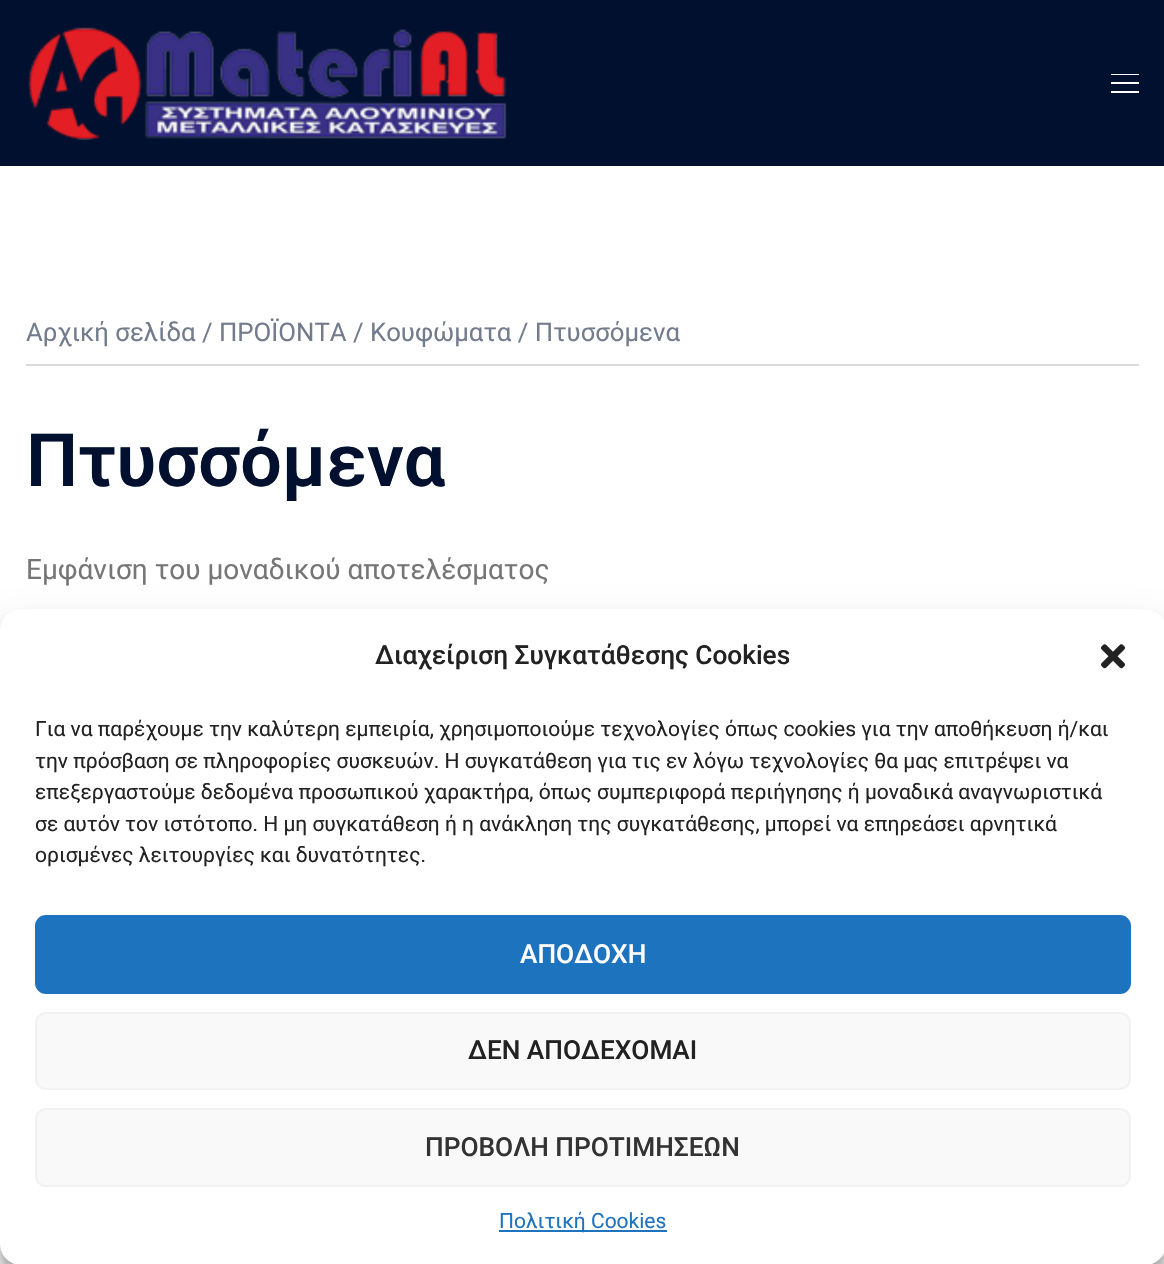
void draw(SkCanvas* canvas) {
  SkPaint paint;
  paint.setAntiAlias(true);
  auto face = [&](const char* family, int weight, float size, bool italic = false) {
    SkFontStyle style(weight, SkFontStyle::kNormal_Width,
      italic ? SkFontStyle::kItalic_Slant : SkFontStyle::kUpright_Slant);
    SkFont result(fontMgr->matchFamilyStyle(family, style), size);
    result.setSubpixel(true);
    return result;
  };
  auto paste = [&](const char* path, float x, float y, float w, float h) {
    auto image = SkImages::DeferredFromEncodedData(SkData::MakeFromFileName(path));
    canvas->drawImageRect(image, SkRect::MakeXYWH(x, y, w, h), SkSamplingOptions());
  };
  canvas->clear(0xffffffff);
  paint.setColor(0xff00102e);
  canvas->drawRect(SkRect::MakeXYWH(0, 0, 1164, 166), paint);
  paste("img/1.png", 28, 27, 479, 113);
  {
    const struct { float x, y, w, h; SkColor color; } items[] = {
      {1111, 74, 28, 1, 0xffffffff},
      {1111, 82, 28, 2, 0xffffffff},
      {1111, 91, 28, 2, 0xffffffff},
      {26, 364, 1113, 2, 0xffdbdbdb},
    };
    for (auto [x, y, w, h, color] : items) {
      paint.setColor(color);
      canvas->drawRect(SkRect::MakeXYWH(x, y, w, h), paint);
    }
  }
  paint.setColor(0x3b000000);
  paint.setMaskFilter(SkMaskFilter::MakeBlur(kNormal_SkBlurStyle, 5));
  canvas->drawRoundRect(SkRect::MakeXYWH(0, 620, 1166, 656), 21, 21, paint);
  paint.setMaskFilter(nullptr);
  paint.setColor(0x30000000);
  paint.setMaskFilter(SkMaskFilter::MakeBlur(kNormal_SkBlurStyle, 17.5f));
  canvas->drawRoundRect(SkRect::MakeXYWH(0, 627, 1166, 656), 21, 21, paint);
  paint.setMaskFilter(nullptr);
  paint.setColor(0xffffffff);
  canvas->drawRoundRect(SkRect::MakeXYWH(0, 609, 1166, 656), 21, 21, paint);
  paste("img/2.png", 1101, 644, 24, 25);
  paint.setColor(0xff1e73be);
  canvas->drawRoundRect(SkRect::MakeXYWH(36, 916, 1094, 77), 10, 10, paint);
  paint.setStroke(true);
  paint.setStrokeWidth(2);
  canvas->drawRoundRect(SkRect::MakeXYWH(36, 916, 1094, 77), 10, 10, paint);
  paint.setStroke(false);
  paint.setColor(0xfff9f9f9);
  canvas->drawRoundRect(SkRect::MakeXYWH(36, 1013, 1094, 76), 10, 10, paint);
  paint.setStroke(true);
  paint.setColor(0xfff2f2f2);
  canvas->drawRoundRect(SkRect::MakeXYWH(36, 1013, 1094, 76), 10, 10, paint);
  paint.setStroke(false);
  paint.setColor(0xfff9f9f9);
  canvas->drawRoundRect(SkRect::MakeXYWH(36, 1109, 1094, 77), 10, 10, paint);
  paint.setStroke(true);
  paint.setColor(0xfff2f2f2);
  canvas->drawRoundRect(SkRect::MakeXYWH(36, 1109, 1094, 77), 10, 10, paint);
  paint.setStroke(false);
  paint.setColor(0xff1e73be);
  canvas->drawRect(SkRect::MakeXYWH(499, 1230, 168, 2), paint);
  auto f0 = face("Roboto", 400, 25.75f);
  paint.setColor(0xff737c8c);
  canvas->drawString("Αρχική σελίδα / ΠΡΟΪΟΝΤΑ / Κουφώματα / Πτυσσόμενα", 26, 341, f0, paint);
  auto f1 = face("Roboto", 600, 73.5f);
  paint.setColor(0xff00102e);
  canvas->drawString("Πτυσσόμενα", 26, 486, f1, paint);
  auto f2 = face("Roboto", 400, 28);
  paint.setColor(0xff767676);
  canvas->drawString("Εμφάνιση του μοναδικού αποτελέσματος", 26, 579, f2, paint);
  auto f3 = face("Roboto", 500, 26.25f);
  paint.setColor(0xff222222);
  canvas->drawString("Διαχείριση Συγκατάθεσης Cookies", 375, 664, f3, paint);
  auto f4 = face("Roboto", 400, 21);
  {
    const struct { const char* s; float x, y; } items[] = {
      {"Για να παρέχουμε την καλύτερη εμπειρία, χρησιμοποιούμε τεχνολογίες όπως cookies για την αποθήκευση ή/και", 35, 736},
      {"την πρόσβαση σε πληροφορίες συσκευών. Η συγκατάθεση για τις εν λόγω τεχνολογίες θα μας επιτρέψει να", 35, 768},
      {"επεξεργαστούμε δεδομένα προσωπικού χαρακτήρα, όπως συμπεριφορά περιήγησης ή μοναδικά αναγνωριστικά", 35, 799},
      {"σε αυτόν τον ιστότοπο. Η μη συγκατάθεση ή η ανάκληση της συγκατάθεσης, μπορεί να επηρεάσει αρνητικά", 35, 831},
      {"ορισμένες λειτουργίες και δυνατότητες.", 35, 862},
    };
    for (auto [s, x, y] : items) {
      canvas->drawString(s, x, y, f4, paint);
    }
  }
  paint.setColor(0xffffffff);
  canvas->drawString("ΑΠΟΔΟΧΗ", 520, 963, f3, paint);
  paint.setColor(0xff222222);
  canvas->drawString("ΔΕΝ ΑΠΟΔΕΧΟΜΑΙ", 468, 1059, f3, paint);
  paint.setColor(0xff333333);
  canvas->drawString("ΠΡΟΒΟΛΗ ΠΡΟΤΙΜΗΣΕΩΝ", 425, 1156, f3, paint);
  paint.setColor(0xff1e73be);
  canvas->drawString("Πολιτική Cookies", 499, 1228, f4, paint);
}
